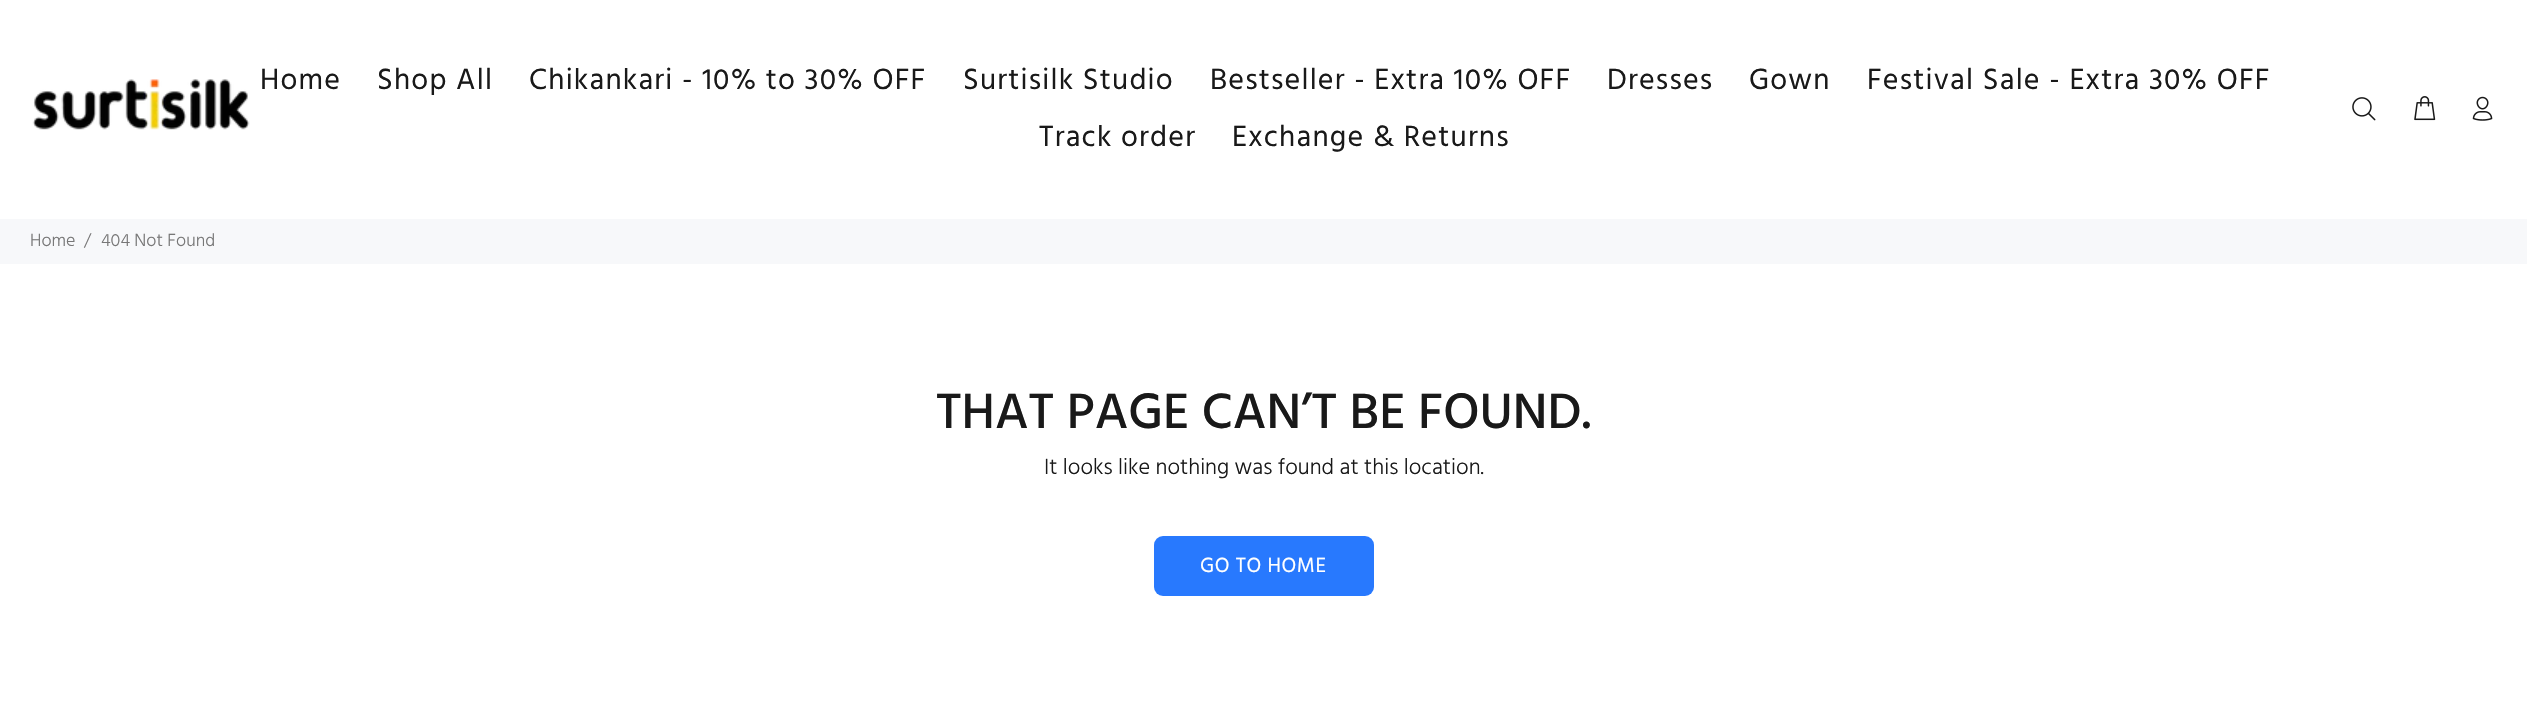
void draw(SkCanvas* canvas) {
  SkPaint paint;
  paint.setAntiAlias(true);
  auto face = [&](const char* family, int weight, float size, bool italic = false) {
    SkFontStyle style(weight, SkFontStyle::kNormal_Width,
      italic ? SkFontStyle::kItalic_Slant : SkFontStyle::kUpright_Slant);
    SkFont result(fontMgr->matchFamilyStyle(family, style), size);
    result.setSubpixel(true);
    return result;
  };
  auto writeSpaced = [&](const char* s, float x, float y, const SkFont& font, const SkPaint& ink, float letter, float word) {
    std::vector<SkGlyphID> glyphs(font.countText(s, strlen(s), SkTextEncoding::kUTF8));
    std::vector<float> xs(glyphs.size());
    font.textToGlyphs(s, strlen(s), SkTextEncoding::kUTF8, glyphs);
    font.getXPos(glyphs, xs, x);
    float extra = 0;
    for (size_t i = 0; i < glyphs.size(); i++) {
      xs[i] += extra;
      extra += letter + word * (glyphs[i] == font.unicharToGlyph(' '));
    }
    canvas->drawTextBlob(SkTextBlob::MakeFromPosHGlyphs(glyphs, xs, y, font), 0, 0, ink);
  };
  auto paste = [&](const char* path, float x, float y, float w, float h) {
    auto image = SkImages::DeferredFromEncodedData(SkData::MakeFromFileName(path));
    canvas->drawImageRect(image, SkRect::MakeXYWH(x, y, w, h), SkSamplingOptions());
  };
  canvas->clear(0xffffffff);
  paste("img/1.png", 32, 79, 218, 51);
  paste("img/2.png", 2352, 97, 24, 24);
  paste("img/3.png", 2414, 96, 22, 25);
  paste("img/4.png", 2472, 96, 21, 25);
  paint.setColor(0xfff7f8fa);
  canvas->drawRect(SkRect::MakeXYWH(0, 219, 2527, 45), paint);
  paint.setColor(0xff2879fe);
  canvas->drawRoundRect(SkRect::MakeXYWH(1154, 536, 220, 60), 9, 9, paint);
  auto f0 = face("Hind", 400, 30);
  paint.setColor(0xff191919);
  {
    const struct { const char* s; float x, y; } items[] = {
      {"Home", 260, 89},
      {"Shop All", 377, 89},
      {"Chikankari - 10% to 30% OFF", 529, 89},
      {"Surtisilk Studio", 963, 89},
      {"Bestseller - Extra 10% OFF", 1210, 89},
      {"Dresses", 1607, 89},
      {"Gown", 1749, 89},
      {"Festival Sale - Extra 30% OFF", 1867, 89},
      {"Track order", 1039, 146},
      {"Exchange & Returns", 1232, 146},
    };
    for (auto [s, x, y] : items) {
      writeSpaced(s, x, y, f0, paint, 1.2f, 0);
    }
  }
  auto f1 = face("Hind", 300, 18);
  paint.setColor(0xff777777);
  {
    const struct { const char* s; float x, y; } items[] = {
      {"Home", 30, 246},
      {"/", 84, 246},
      {"404 Not Found", 101, 246},
    };
    for (auto [s, x, y] : items) {
      canvas->drawString(s, x, y, f1, paint);
    }
  }
  auto f2 = face("Hind", 500, 51);
  paint.setColor(0xff191919);
  canvas->drawString("THAT PAGE CAN’T BE FOUND.", 936, 428, f2, paint);
  auto f3 = face("Hind", 300, 22.5f);
  canvas->drawString("It looks like nothing was found at this location.", 1044, 474, f3, paint);
  auto f4 = face("Hind", 400, 21);
  paint.setColor(0xffffffff);
  writeSpaced("GO TO HOME", 1200, 572, f4, paint, 0.6f, 0);
}
